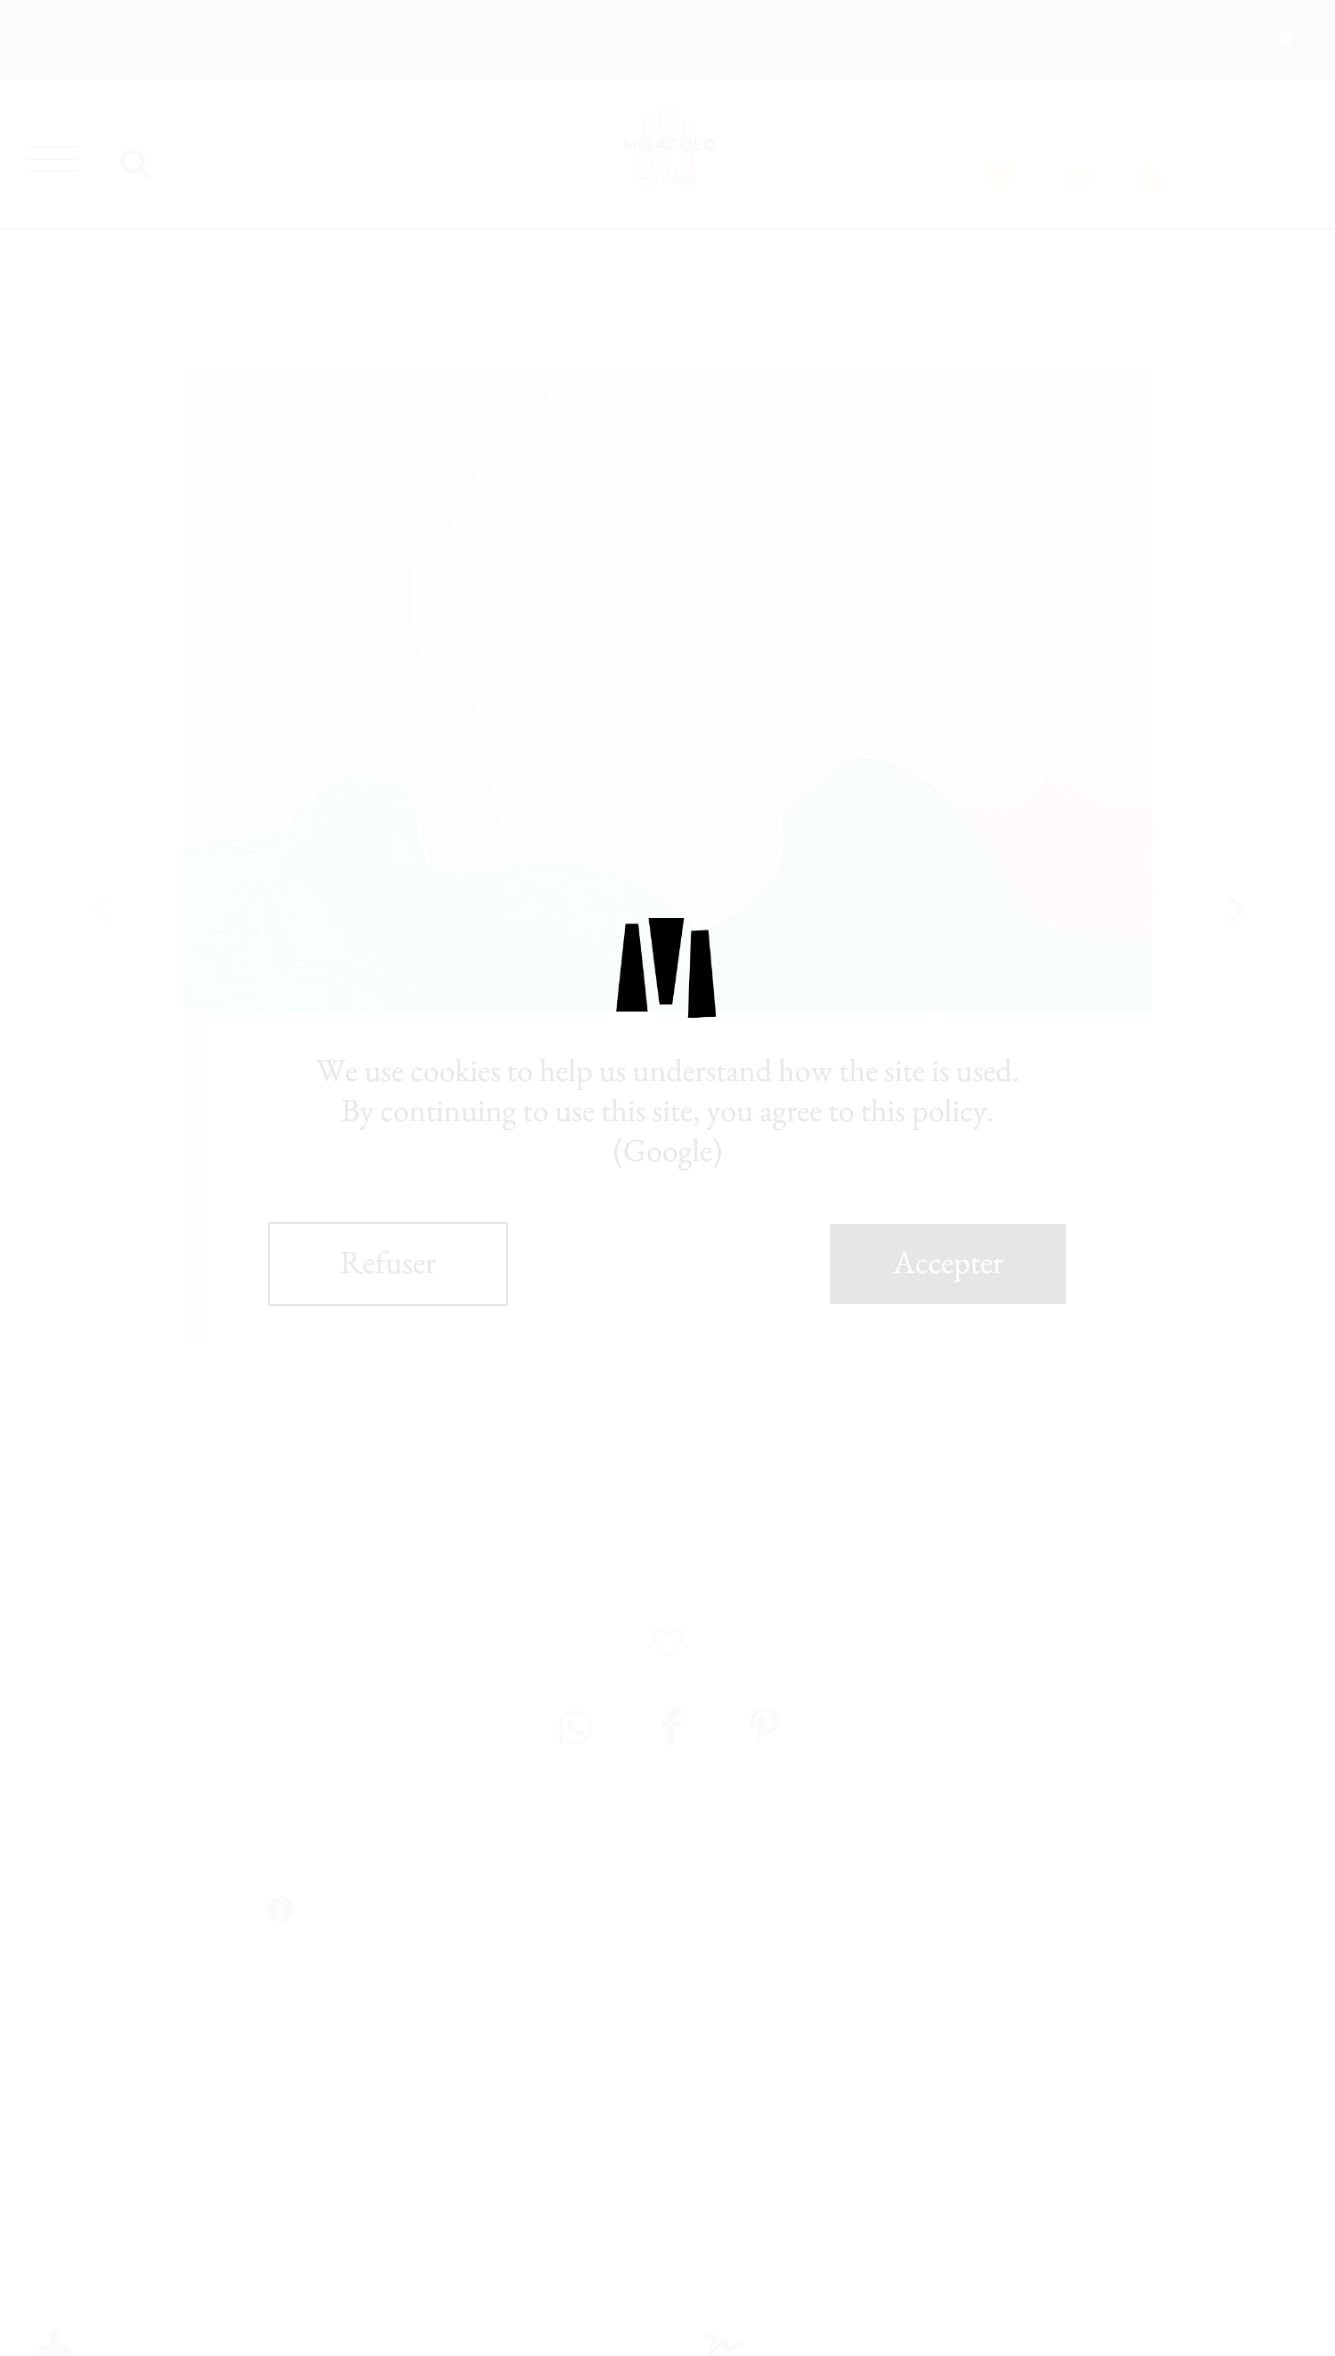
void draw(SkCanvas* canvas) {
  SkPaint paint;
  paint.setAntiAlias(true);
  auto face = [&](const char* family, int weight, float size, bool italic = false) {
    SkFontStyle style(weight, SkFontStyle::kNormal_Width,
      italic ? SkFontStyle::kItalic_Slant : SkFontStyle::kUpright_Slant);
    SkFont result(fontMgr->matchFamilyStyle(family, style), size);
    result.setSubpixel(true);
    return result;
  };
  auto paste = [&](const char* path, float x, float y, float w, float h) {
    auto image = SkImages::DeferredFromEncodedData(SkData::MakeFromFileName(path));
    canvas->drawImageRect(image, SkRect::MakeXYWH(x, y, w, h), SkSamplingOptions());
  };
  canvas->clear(0xffffffff);
  paint.setColor(0xfffbfbfb);
  canvas->drawRect(SkRect::MakeXYWH(0, 0, 1335, 80), paint);
  paste("img/1.png", 1277, 30, 17, 17);
  {
    const struct { float x, y, w, h; SkColor color; } items[] = {
      {0, 228, 1335, 2, 0xfff9f9f9},
      {28, 146, 50, 2, 0xfff9f9f9},
      {28, 158, 50, 2, 0xfff9f9f9},
      {28, 170, 50, 2, 0xfff9f9f9},
    };
    for (auto [x, y, w, h, color] : items) {
      paint.setColor(color);
      canvas->drawRect(SkRect::MakeXYWH(x, y, w, h), paint);
    }
  }
  paste("img/2.png", 120, 148, 30, 31);
  paste("img/3.png", 624, 110, 93, 77);
  paste("img/4.png", 984, 164, 32, 29);
  paste("img/5.png", 1062, 167, 30, 26);
  paste("img/6.png", 1138, 164, 23, 29);
  paste("img/7.png", 68, 258, 1200, 1200);
  paste("img/8.png", 93, 896, 17, 28);
  paste("img/9.png", 1228, 896, 17, 28);
  paste("img/10.png", 652, 1628, 32, 29);
  paste("img/11.png", 558, 1710, 35, 35);
  paste("img/12.png", 662, 1707, 20, 38);
  paste("img/13.png", 750, 1707, 29, 38);
  paste("img/14.png", 268, 1896, 26, 27);
  paste("img/15.png", 38, 2328, 40, 28);
  paste("img/16.png", 698, 2328, 48, 28);
  paint.setColor(0xffffffff);
  canvas->drawRect(SkRect::MakeXYWH(209, 1012, 943, 330), paint);
  paste("img/17.png", 616, 918, 100, 100);
  paint.setStroke(true);
  paint.setStrokeWidth(2);
  paint.setColor(0xffe6e6e6);
  canvas->drawRect(SkRect::MakeXYWH(269, 1223, 238, 82), paint);
  paint.setStroke(false);
  canvas->drawRect(SkRect::MakeXYWH(830, 1224, 236, 80), paint);
  auto f0 = face("EB Garamond", 400, 32);
  paint.setColor(0xffe9e9e9);
  {
    const struct { const char* s; float x, y; } items[] = {
      {"We use cookies to help us understand how the site is used.", 316, 1081},
      {"By continuing to use this site, you agree to this policy.", 341, 1121},
      {"(Google)", 613, 1161},
      {"Refuser", 340, 1273},
    };
    for (auto [s, x, y] : items) {
      canvas->drawString(s, x, y, f0, paint);
    }
  }
  paint.setColor(0xffffffff);
  canvas->drawString("Accepter", 893, 1273, f0, paint);
}
